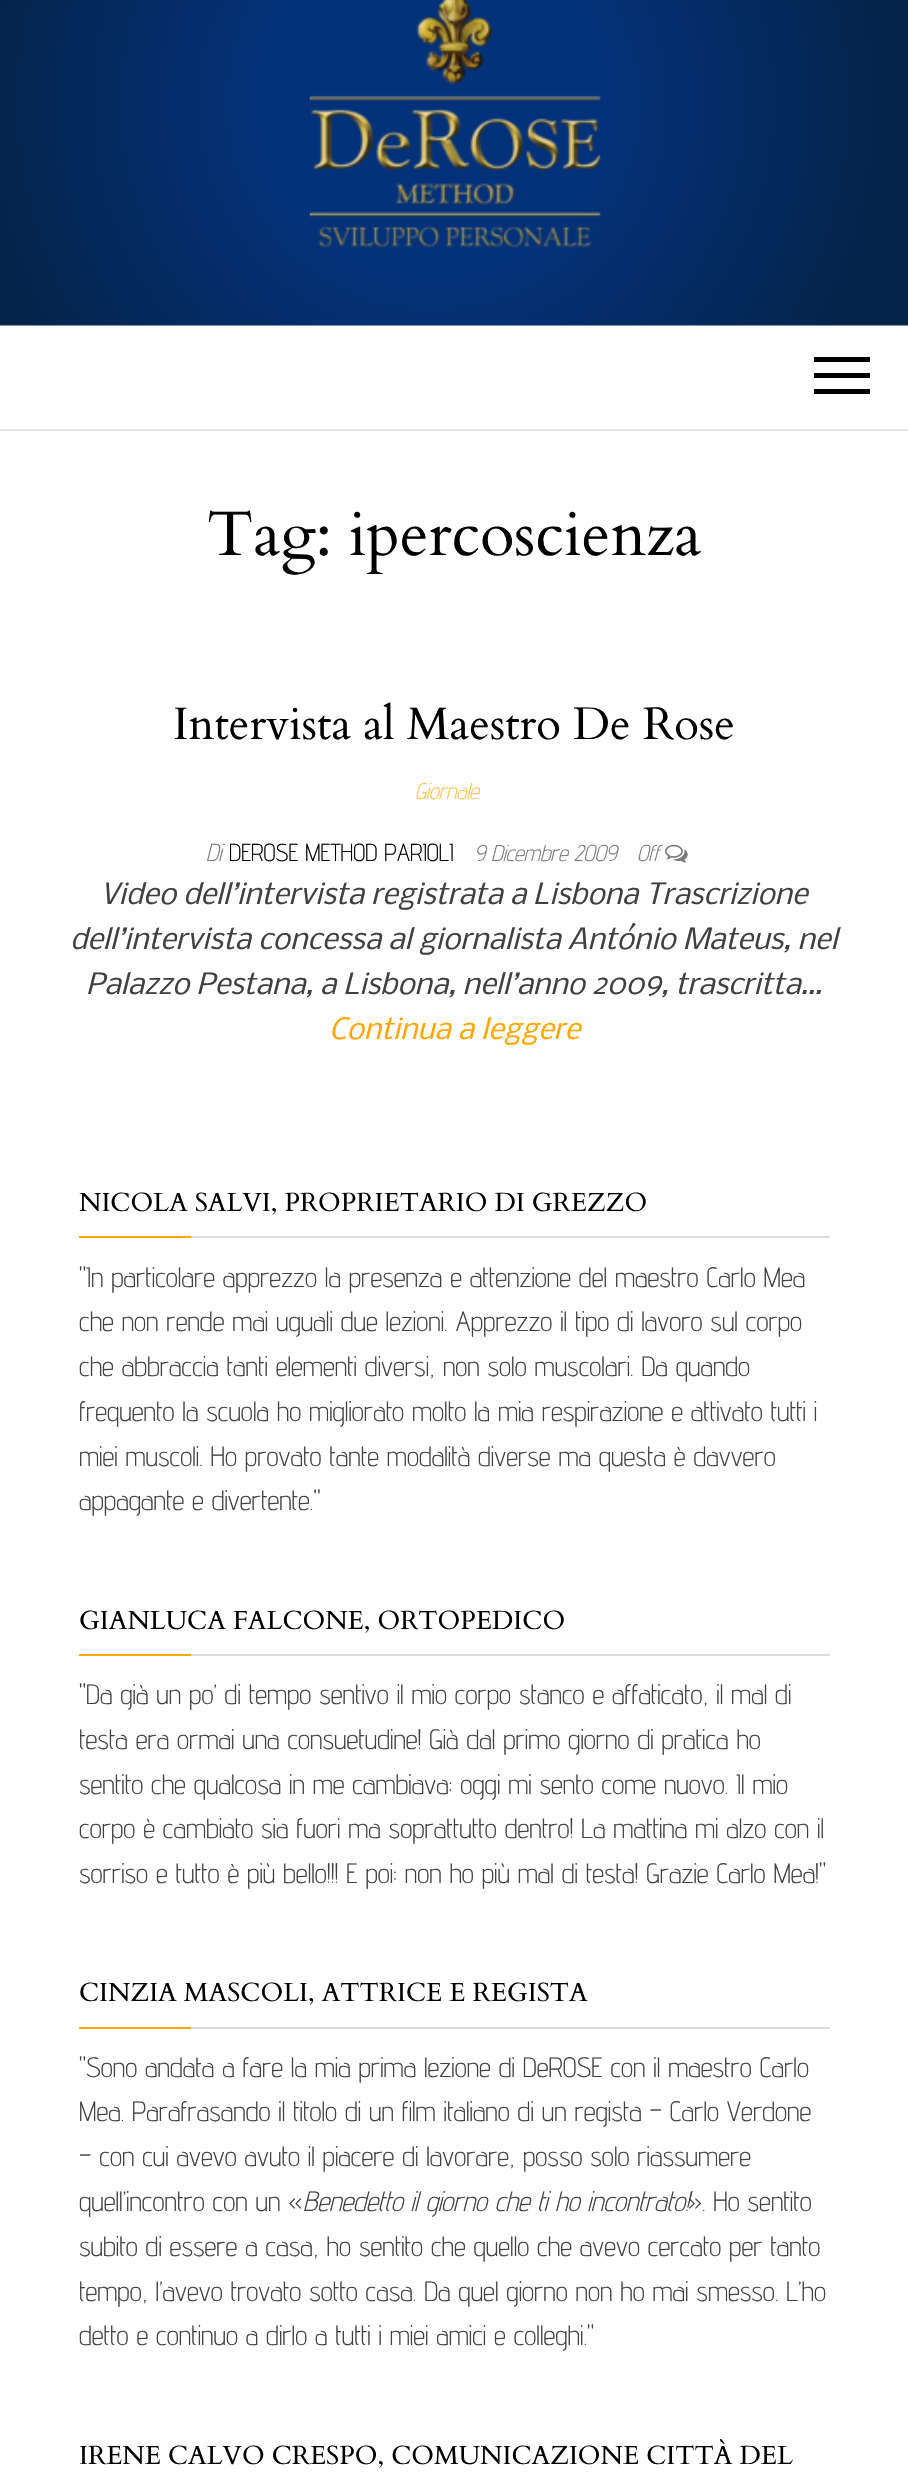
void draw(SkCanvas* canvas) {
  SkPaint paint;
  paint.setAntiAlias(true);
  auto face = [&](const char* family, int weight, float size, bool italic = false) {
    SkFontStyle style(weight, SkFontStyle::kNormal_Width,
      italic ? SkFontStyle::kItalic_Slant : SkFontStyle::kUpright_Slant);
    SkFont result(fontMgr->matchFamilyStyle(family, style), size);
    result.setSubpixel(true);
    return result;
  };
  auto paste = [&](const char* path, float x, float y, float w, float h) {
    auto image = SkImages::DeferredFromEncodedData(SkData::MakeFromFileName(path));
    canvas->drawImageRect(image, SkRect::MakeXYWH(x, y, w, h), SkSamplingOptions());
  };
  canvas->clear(0xffffffff);
  paste("img/1.png", 0, 0, 908, 326);
  paste("img/2.png", 309, 0, 292, 248);
  {
    const struct { float x, y, w, h; SkColor color; } items[] = {
      {0, 429, 908, 2, 0xffe3e3e3},
      {814, 357, 56, 5, 0xff000000},
      {814, 373, 56, 5, 0xff000000},
      {814, 389, 56, 5, 0xff000000},
    };
    for (auto [x, y, w, h, color] : items) {
      paint.setColor(color);
      canvas->drawRect(SkRect::MakeXYWH(x, y, w, h), paint);
    }
  }
  paste("img/3.png", 665, 844, 23, 19);
  {
    const struct { float x, y, w, h; SkColor color; } items[] = {
      {79, 1236, 112, 2, 0xffffa700},
      {191, 1236, 639, 2, 0xffdddddd},
      {79, 1654, 112, 2, 0xffffa700},
      {191, 1654, 639, 2, 0xffdddddd},
      {79, 2027, 112, 2, 0xffffa700},
      {191, 2027, 639, 2, 0xffdddddd},
    };
    for (auto [x, y, w, h, color] : items) {
      paint.setColor(color);
      canvas->drawRect(SkRect::MakeXYWH(x, y, w, h), paint);
    }
  }
  auto f0 = face("Cardo", 400, 63);
  paint.setColor(0xff000000);
  canvas->drawString("Tag: ipercoscienza", 207, 555, f0, paint);
  auto f1 = face("Cardo", 400, 45.5f);
  canvas->drawString("Intervista al Maestro De Rose", 173, 739, f1, paint);
  auto f2 = face("Advent Pro", 300, 22.75f, true);
  paint.setColor(0xffffc14d);
  canvas->drawString("Giornale", 415, 799, f2, paint);
  auto f3 = face("Advent Pro", 300, 24.5f, true);
  paint.setColor(0xff797979);
  canvas->drawString("Di", 206, 861, f3, paint);
  auto f4 = face("Advent Pro", 300, 24.5f);
  paint.setColor(0xff000000);
  canvas->drawString("DEROSE METHOD PARIOLI", 229, 861, f4, paint);
  paint.setColor(0xff797979);
  canvas->drawString("9 Dicembre 2009", 474, 861, f2, paint);
  canvas->drawString("Off", 637, 861, f2, paint);
  auto f5 = face("Nobile", 400, 28, true);
  paint.setColor(0xff404040);
  {
    const struct { const char* s; float x, y; } items[] = {
      {"Video dell’intervista registrata a Lisbona Trascrizione", 100, 904},
      {"dell’intervista concessa al giornalista António Mateus, nel", 70, 949},
      {"Palazzo Pestana, a Lisbona, nell’anno 2009, trascritta…", 86, 994},
    };
    for (auto [s, x, y] : items) {
      canvas->drawString(s, x, y, f5, paint);
    }
  }
  paint.setColor(0xffffa700);
  canvas->drawString("Continua a leggere", 329, 1039, f5, paint);
  auto f6 = face("Cardo", 400, 26.25f);
  paint.setColor(0xff000000);
  canvas->drawString("NICOLA SALVI, PROPRIETARIO DI GREZZO", 79, 1211, f6, paint);
  auto f7 = face("Advent Pro", 300, 28);
  paint.setColor(0xff404040);
  {
    const struct { const char* s; float x, y; } items[] = {
      {"\"In particolare apprezzo la presenza e attenzione del maestro Carlo Mea", 79, 1287},
      {"che non rende mai uguali due lezioni. Apprezzo il tipo di lavoro sul corpo", 79, 1331},
      {"che abbraccia tanti elementi diversi, non solo muscolari. Da quando", 79, 1376},
      {"frequento la scuola ho migliorato molto la mia respirazione e attivato tutti i", 79, 1421},
      {"miei muscoli. Ho provato tante modalità diverse ma questa è davvero", 79, 1466},
      {"appagante e divertente.\"", 79, 1510},
    };
    for (auto [s, x, y] : items) {
      canvas->drawString(s, x, y, f7, paint);
    }
  }
  paint.setColor(0xff000000);
  canvas->drawString("GIANLUCA FALCONE, ORTOPEDICO", 79, 1629, f6, paint);
  paint.setColor(0xff404040);
  {
    const struct { const char* s; float x, y; } items[] = {
      {"\"Da già un po’ di tempo sentivo il mio corpo stanco e affaticato, il mal di", 79, 1704},
      {"testa era ormai una consuetudine! Già dal primo giorno di pratica ho", 79, 1749},
      {"sentito che qualcosa in me cambiava: oggi mi sento come nuovo. Il mio", 79, 1794},
      {"corpo è cambiato sia fuori ma soprattutto dentro! La mattina mi alzo con il", 79, 1838},
      {"sorriso e tutto è più bello!!! E poi: non ho più mal di testa! Grazie Carlo Mea!\"", 79, 1883},
    };
    for (auto [s, x, y] : items) {
      canvas->drawString(s, x, y, f7, paint);
    }
  }
  paint.setColor(0xff000000);
  canvas->drawString("CINZIA MASCOLI, ATTRICE E REGISTA", 79, 2001, f6, paint);
  paint.setColor(0xff404040);
  {
    const struct { const char* s; float x, y; } items[] = {
      {"\"Sono andata a fare la mia prima lezione di DeROSE con il maestro Carlo", 79, 2077},
      {"Mea. Parafrasando il titolo di un film italiano di un regista – Carlo Verdone", 79, 2121},
      {"– con cui avevo avuto il piacere di lavorare, posso solo riassumere", 79, 2166},
      {"quell’incontro con un «", 79, 2211},
    };
    for (auto [s, x, y] : items) {
      canvas->drawString(s, x, y, f7, paint);
    }
  }
  auto f8 = face("Advent Pro", 300, 28, true);
  canvas->drawString("Benedetto il giorno che ti ho incontrato!", 303, 2211, f8, paint);
  {
    const struct { const char* s; float x, y; } items[] = {
      {"». Ho sentito", 688, 2211},
      {"subito di essere a casa, ho sentito che quello che avevo cercato per tanto", 79, 2256},
      {"tempo, l’avevo trovato sotto casa. Da quel giorno non ho mai smesso. L’ho", 79, 2301},
      {"detto e continuo a dirlo a tutti i miei amici e colleghi.\"", 79, 2345},
    };
    for (auto [s, x, y] : items) {
      canvas->drawString(s, x, y, f7, paint);
    }
  }
  paint.setColor(0xff000000);
  canvas->drawString("IRENE CALVO CRESPO, COMUNICAZIONE CITTÀ DEL", 79, 2464, f6, paint);
}
